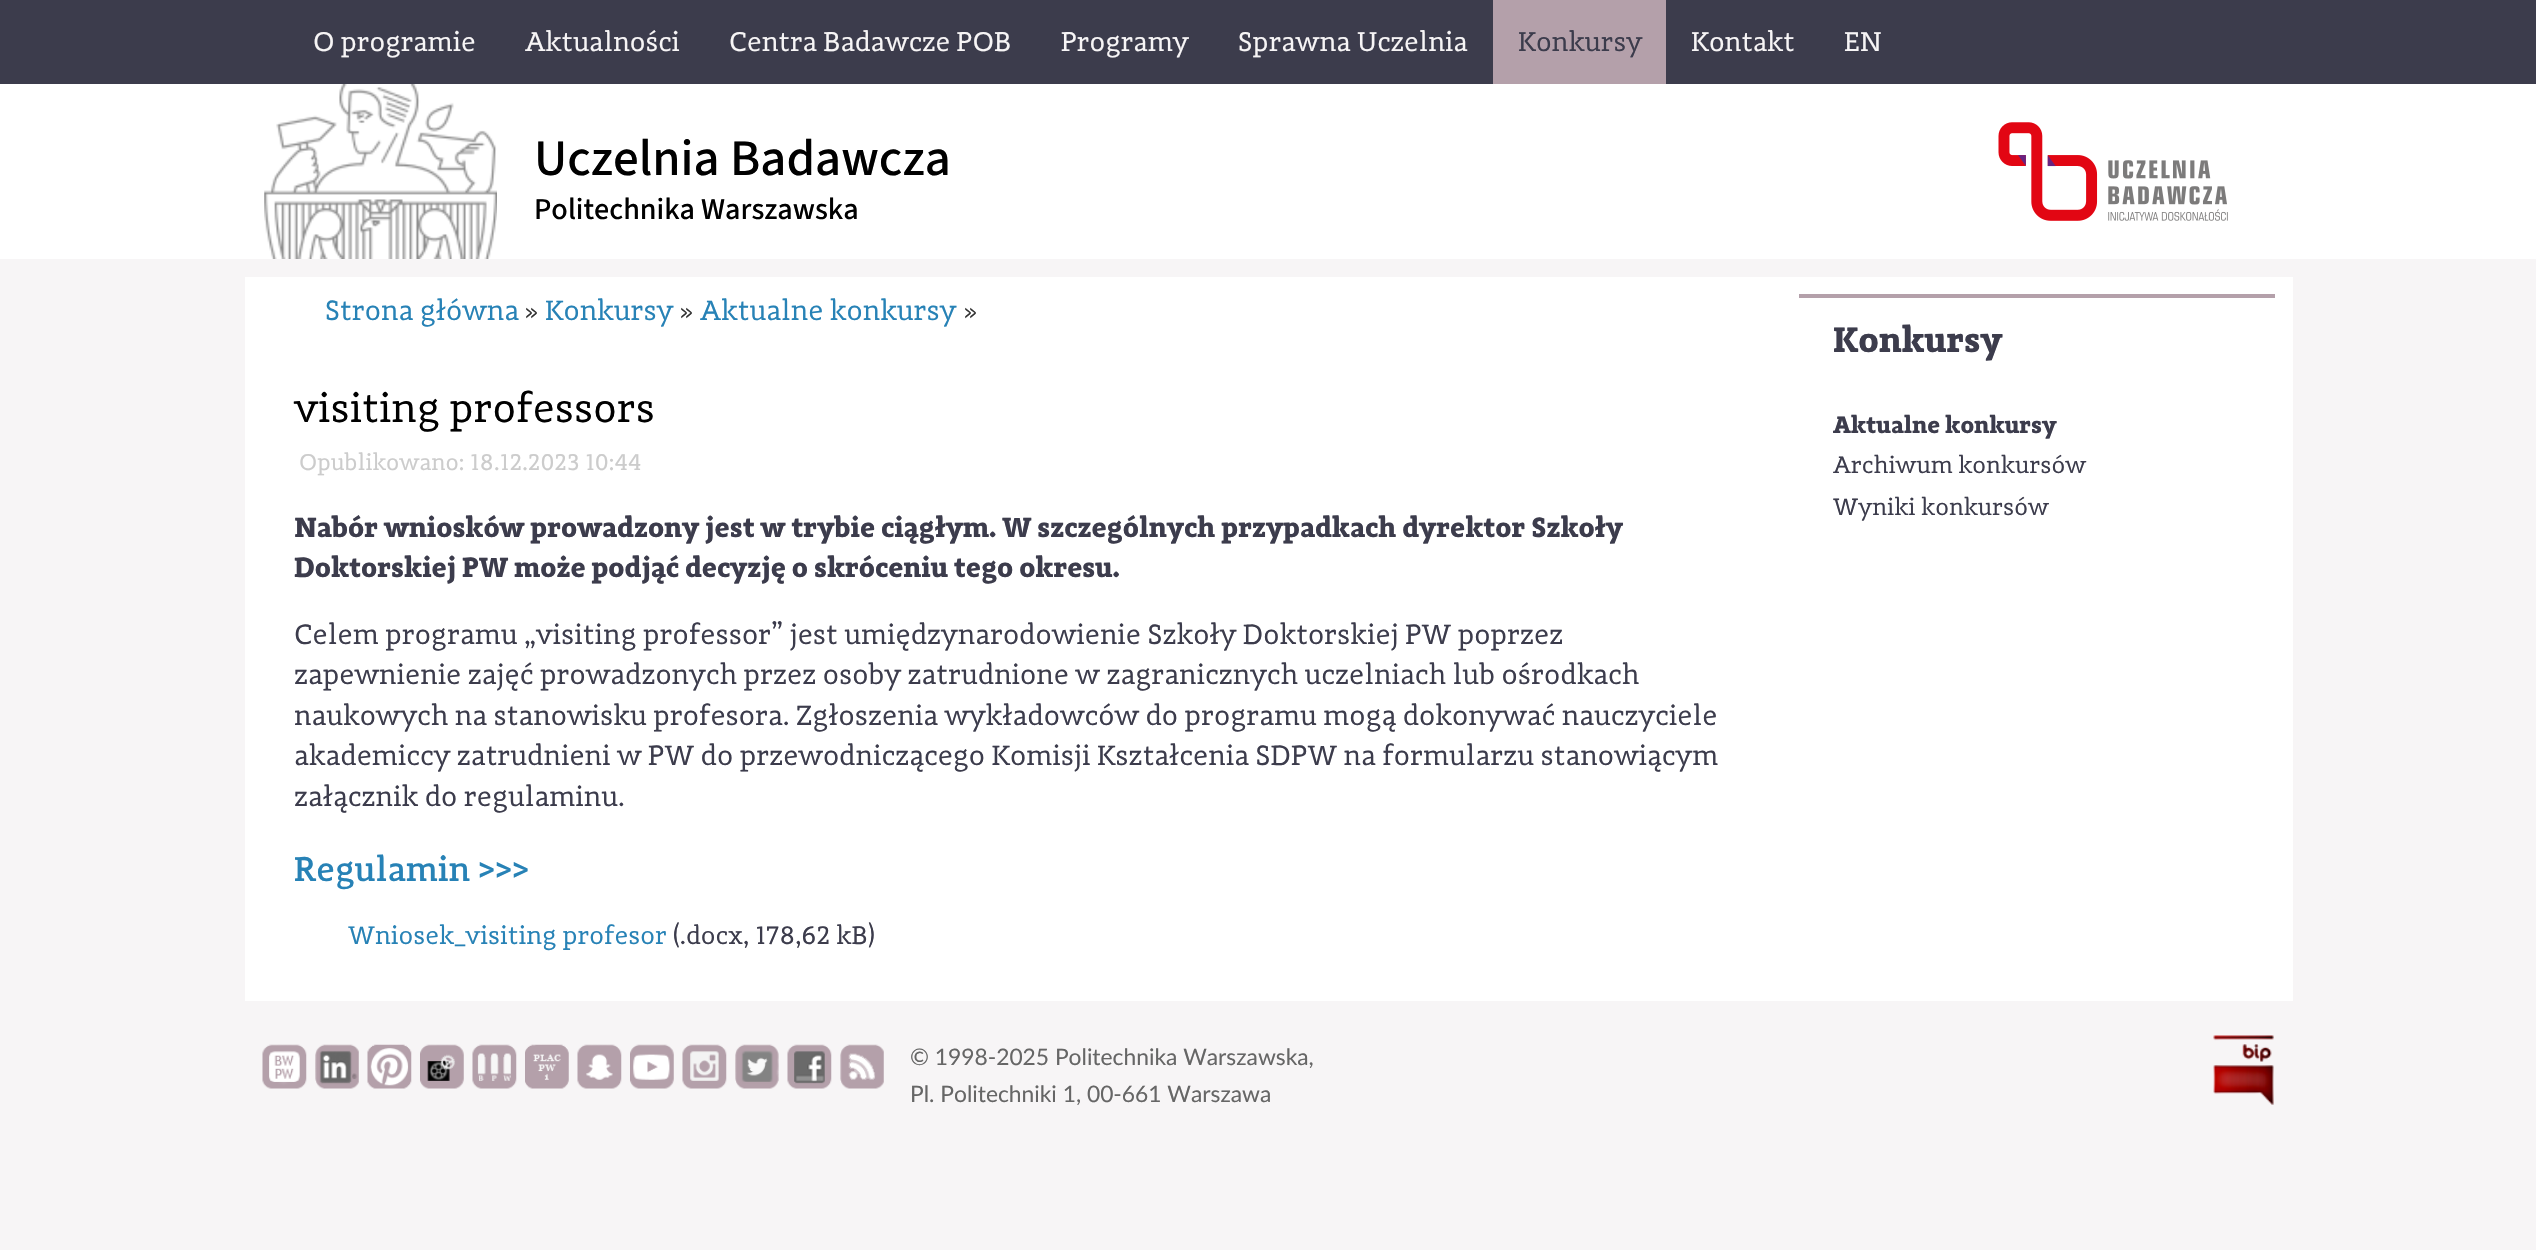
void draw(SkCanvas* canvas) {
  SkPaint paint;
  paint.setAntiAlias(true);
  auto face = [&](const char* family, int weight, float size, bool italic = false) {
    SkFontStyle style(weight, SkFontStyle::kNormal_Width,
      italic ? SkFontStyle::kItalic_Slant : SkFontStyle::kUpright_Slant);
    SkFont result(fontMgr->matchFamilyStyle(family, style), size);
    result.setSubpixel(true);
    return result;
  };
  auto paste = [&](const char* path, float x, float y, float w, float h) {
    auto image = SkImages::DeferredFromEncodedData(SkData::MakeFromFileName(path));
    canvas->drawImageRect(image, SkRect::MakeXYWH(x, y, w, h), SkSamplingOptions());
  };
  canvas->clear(0xfff7f5f6);
  {
    const struct { float x, y, w, h; SkColor color; } items[] = {
      {0, 0, 2536, 84, 0xff3c3c4c},
      {1493, 0, 173, 84, 0xffb4a0aa},
      {0, 84, 2536, 175, 0xffffffff},
    };
    for (auto [x, y, w, h, color] : items) {
      paint.setColor(color);
      canvas->drawRect(SkRect::MakeXYWH(x, y, w, h), paint);
    }
  }
  paste("img/1.png", 264, 84, 233, 175);
  paste("img/2.png", 1998, 122, 230, 99);
  canvas->drawRect(SkRect::MakeXYWH(245, 277, 2048, 724), paint);
  paint.setColor(0xffb4a0aa);
  canvas->drawRect(SkRect::MakeXYWH(1799, 294, 476, 4), paint);
  paste("img/3.png", 262, 1044, 45, 45);
  paste("img/4.png", 315, 1044, 44, 45);
  paste("img/5.png", 367, 1044, 45, 45);
  paste("img/6.png", 420, 1044, 44, 45);
  paste("img/7.png", 472, 1044, 45, 45);
  paste("img/8.png", 525, 1044, 44, 45);
  paste("img/9.png", 577, 1044, 45, 45);
  paste("img/10.png", 630, 1044, 44, 45);
  paste("img/11.png", 682, 1044, 45, 45);
  paste("img/12.png", 735, 1044, 44, 45);
  paste("img/13.png", 787, 1044, 45, 45);
  paste("img/14.png", 840, 1044, 44, 45);
  paste("img/15.png", 2213, 1035, 61, 70);
  auto f0 = face("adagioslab", 400, 28);
  paint.setColor(0xfff7f5f6);
  {
    const struct { const char* s; float x, y; } items[] = {
      {"O programie", 313, 51},
      {"Aktualności", 525, 51},
      {"Centra Badawcze POB", 729, 51},
      {"Programy", 1061, 51},
      {"Sprawna Uczelnia", 1238, 51},
    };
    for (auto [s, x, y] : items) {
      canvas->drawString(s, x, y, f0, paint);
    }
  }
  paint.setColor(0xff3c3c4c);
  canvas->drawString("Konkursy", 1518, 51, f0, paint);
  paint.setColor(0xfff7f5f6);
  canvas->drawString("Kontakt", 1691, 51, f0, paint);
  canvas->drawString("EN", 1844, 51, f0, paint);
  auto f1 = face("Source Sans 3", 500, 51.25f);
  paint.setColor(0xff000000);
  canvas->drawString("Uczelnia Badawcza", 534, 175, f1, paint);
  auto f2 = face("Source Sans 3", 500, 30.25f);
  canvas->drawString("Politechnika Warszawska", 534, 219, f2, paint);
  auto f3 = face("adagioslab", 400, 28.9f);
  paint.setColor(0xff2782b6);
  canvas->drawString("Strona główna", 325, 320, f3, paint);
  auto f4 = face("adagioslab", 400, 23);
  paint.setColor(0xff333333);
  canvas->drawString("»", 525, 319, f4, paint);
  paint.setColor(0xff2782b6);
  canvas->drawString("Konkursy", 545, 320, f3, paint);
  paint.setColor(0xff333333);
  canvas->drawString("»", 680, 319, f4, paint);
  paint.setColor(0xff2782b6);
  canvas->drawString("Aktualne konkursy", 700, 320, f3, paint);
  paint.setColor(0xff333333);
  canvas->drawString("»", 964, 319, f4, paint);
  auto f5 = face("adagioslab", 400, 42);
  paint.setColor(0xff000000);
  canvas->drawString("visiting professors", 294, 422, f5, paint);
  auto f6 = face("adagioslab", 400, 23.6f);
  paint.setColor(0xffcccccc);
  canvas->drawString("Opublikowano: 18.12.2023 10:44", 299, 470, f6, paint);
  auto f7 = face("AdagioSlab", 700, 28.9f);
  paint.setColor(0xff3c3c4c);
  canvas->drawString("Nabór wniosków prowadzony jest w trybie ciągłym. W szczególnych przypadkach dyrektor Szkoły", 294, 537, f7, paint);
  canvas->drawString("Doktorskiej PW może podjąć decyzję o skróceniu tego okresu.", 294, 577, f7, paint);
  {
    const struct { const char* s; float x, y; } items[] = {
      {"Celem programu „visiting professor” jest umiędzynarodowienie Szkoły Doktorskiej PW poprzez", 294, 644},
      {"zapewnienie zajęć prowadzonych przez osoby zatrudnione w zagranicznych uczelniach lub ośrodkach", 294, 684},
      {"naukowych na stanowisku profesora. Zgłoszenia wykładowców do programu mogą dokonywać nauczyciele", 294, 725},
      {"akademiccy zatrudnieni w PW do przewodniczącego Komisji Kształcenia SDPW na formularzu stanowiącym", 294, 765},
      {"załącznik do regulaminu.", 294, 806},
    };
    for (auto [s, x, y] : items) {
      canvas->drawString(s, x, y, f3, paint);
    }
  }
  auto f8 = face("AdagioSlab", 500, 35.5f);
  paint.setColor(0xff2782b6);
  canvas->drawString("Regulamin >>>", 294, 881, f8, paint);
  auto f9 = face("adagioslab", 400, 26.25f);
  canvas->drawString("Wniosek_visiting profesor", 348, 944, f9, paint);
  paint.setColor(0xff3c3c4c);
  canvas->drawString("(.docx, 178,62 kB)", 673, 944, f9, paint);
  auto f10 = face("AdagioSlab", 700, 36.75f);
  canvas->drawString("Konkursy", 1833, 352, f10, paint);
  auto f11 = face("AdagioSlab", 700, 24.5f);
  canvas->drawString("Aktualne konkursy", 1833, 433, f11, paint);
  auto f12 = face("adagioslab", 400, 24.5f);
  canvas->drawString("Archiwum konkursów", 1833, 473, f12, paint);
  canvas->drawString("Wyniki konkursów", 1833, 515, f12, paint);
  auto f13 = face("Lato", 400, 22.8f);
  paint.setColor(0xff666666);
  canvas->drawString("© 1998-2025 Politechnika Warszawska,", 910, 1065, f13, paint);
  canvas->drawString("Pl. Politechniki 1, 00-661 Warszawa", 910, 1102, f13, paint);
}
